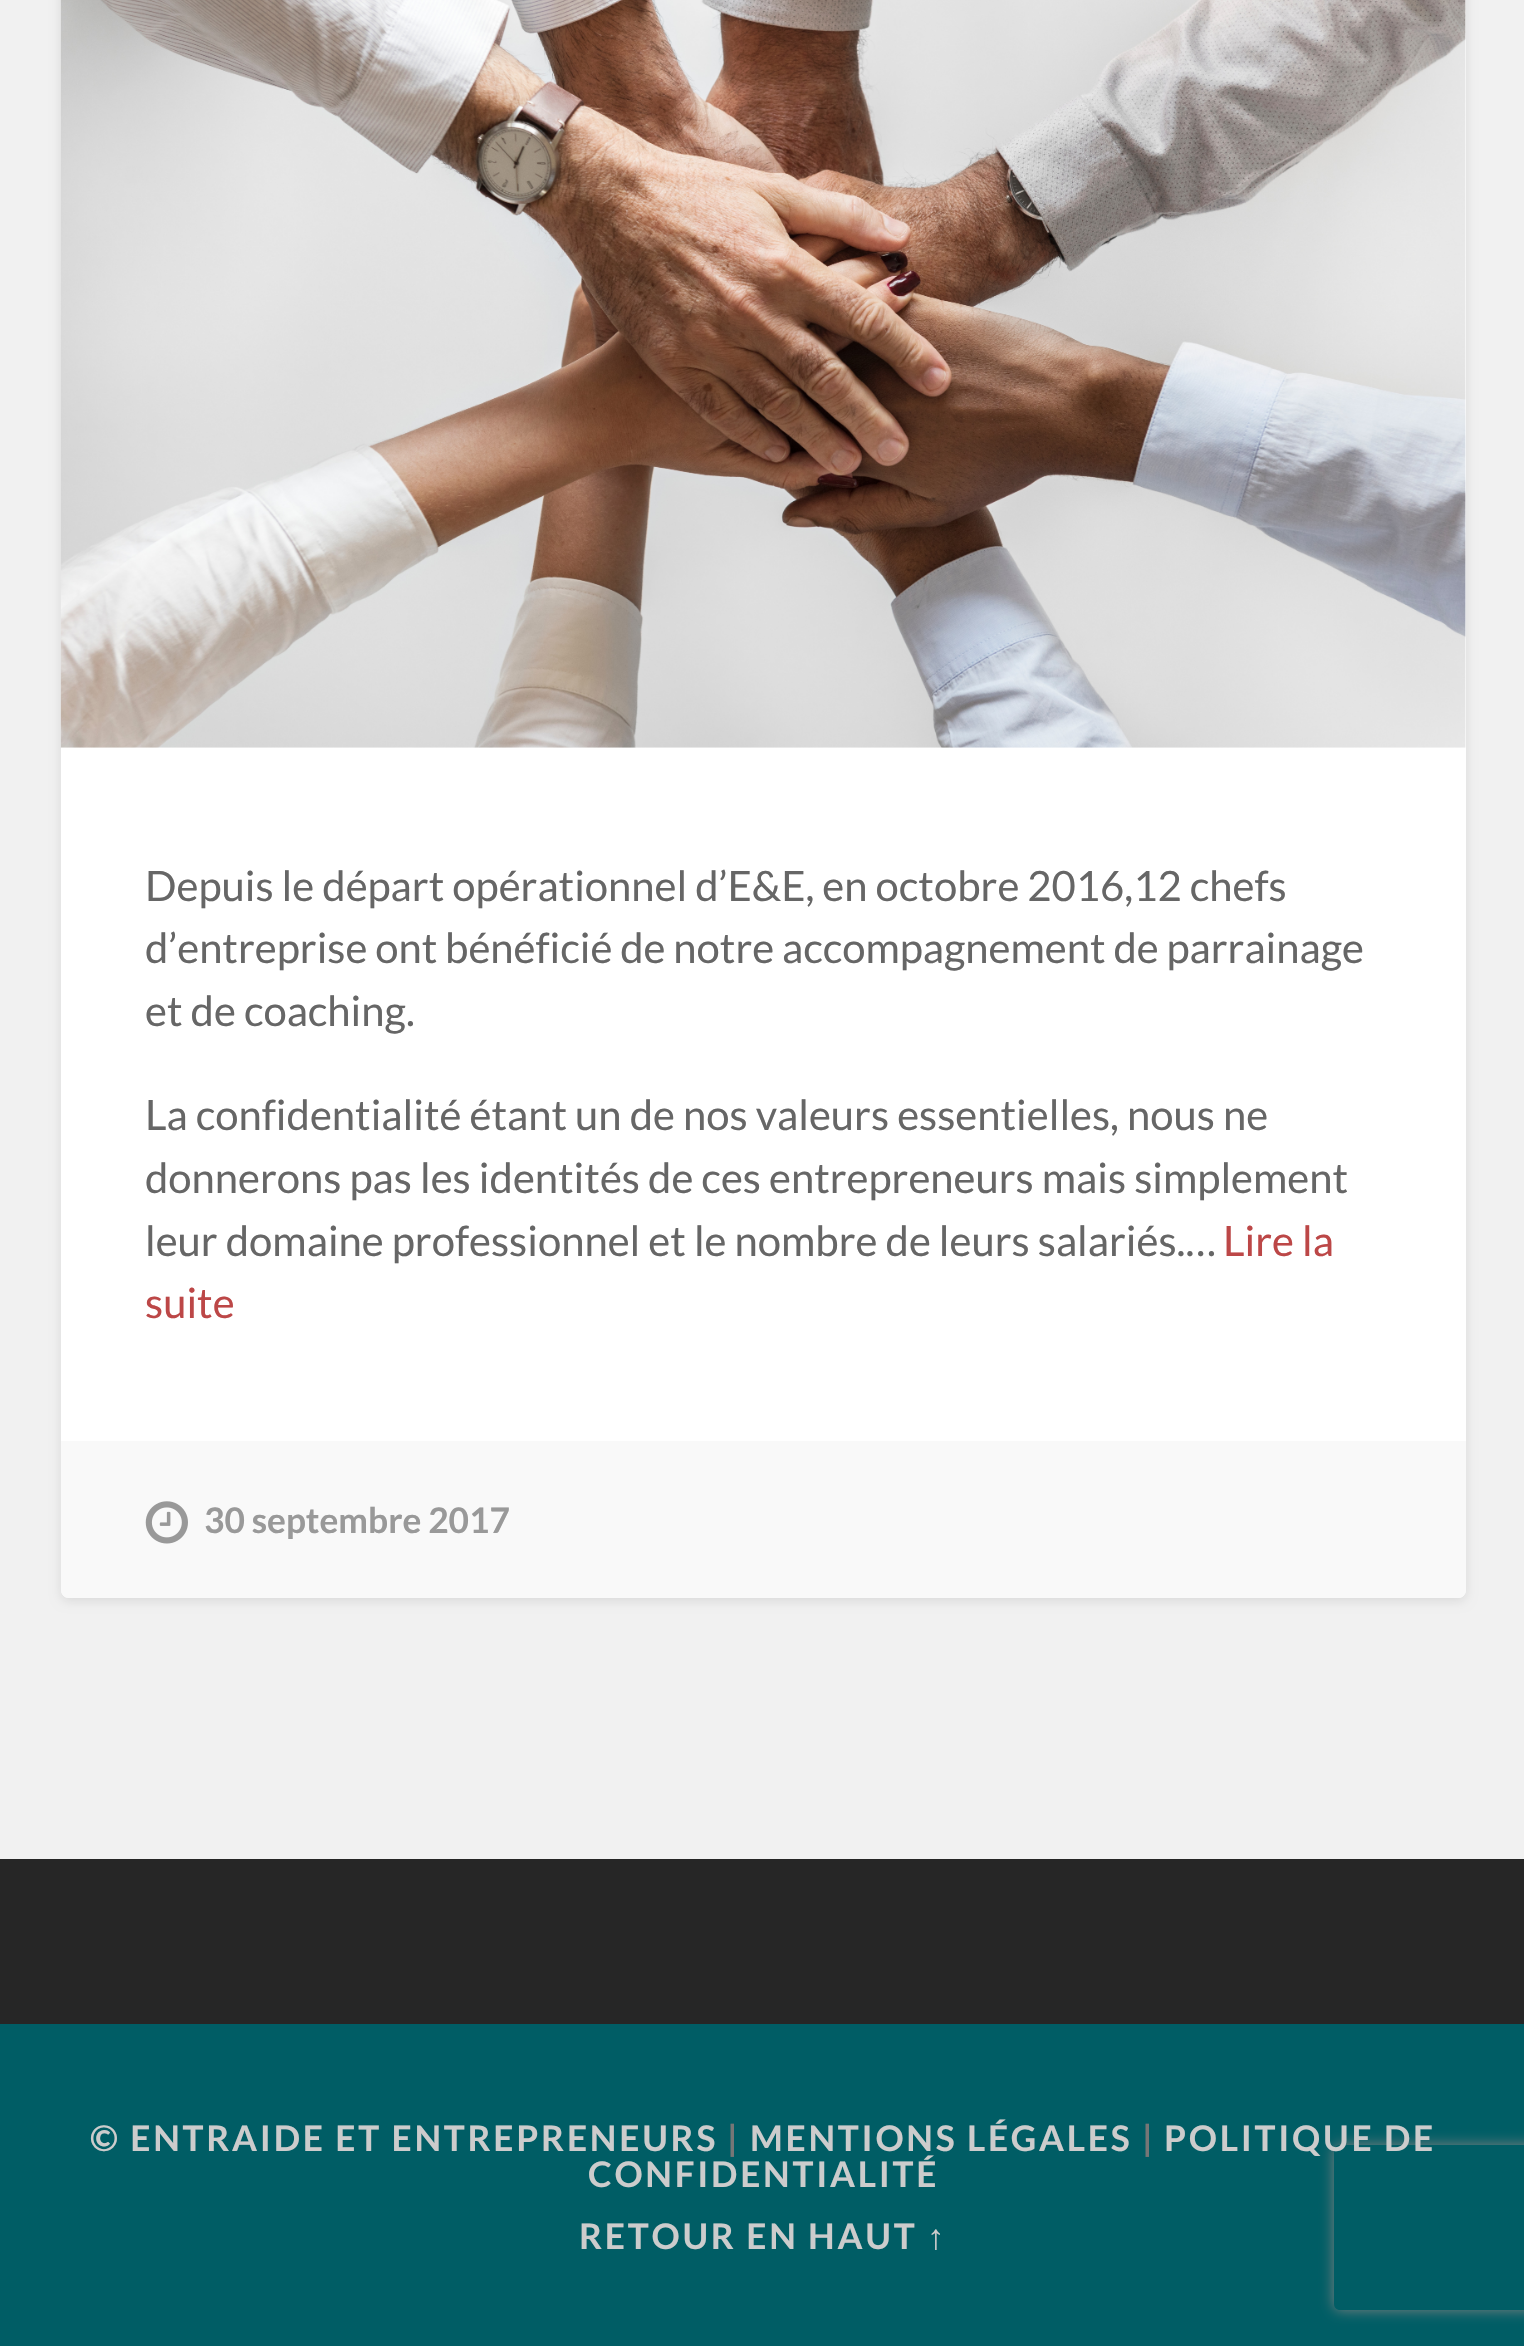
void draw(SkCanvas* canvas) {
  SkPaint paint;
  paint.setAntiAlias(true);
  auto face = [&](const char* family, int weight, float size, bool italic = false) {
    SkFontStyle style(weight, SkFontStyle::kNormal_Width,
      italic ? SkFontStyle::kItalic_Slant : SkFontStyle::kUpright_Slant);
    SkFont result(fontMgr->matchFamilyStyle(family, style), size);
    result.setSubpixel(true);
    return result;
  };
  auto writeSpaced = [&](const char* s, float x, float y, const SkFont& font, const SkPaint& ink, float letter, float word) {
    std::vector<SkGlyphID> glyphs(font.countText(s, strlen(s), SkTextEncoding::kUTF8));
    std::vector<float> xs(glyphs.size());
    font.textToGlyphs(s, strlen(s), SkTextEncoding::kUTF8, glyphs);
    font.getXPos(glyphs, xs, x);
    float extra = 0;
    for (size_t i = 0; i < glyphs.size(); i++) {
      xs[i] += extra;
      extra += letter + word * (glyphs[i] == font.unicharToGlyph(' '));
    }
    canvas->drawTextBlob(SkTextBlob::MakeFromPosHGlyphs(glyphs, xs, y, font), 0, 0, ink);
  };
  auto paste = [&](const char* path, float x, float y, float w, float h) {
    auto image = SkImages::DeferredFromEncodedData(SkData::MakeFromFileName(path));
    canvas->drawImageRect(image, SkRect::MakeXYWH(x, y, w, h), SkSamplingOptions());
  };
  auto shape = [&](const char* data, bool evenOdd = false) {
    SkPath result = *SkParsePath::FromSVGString(data);
    if (evenOdd) result.setFillType(SkPathFillType::kEvenOdd);
    return result;
  };
  canvas->clear(0xfff1f1f1);
  paint.setColor(0x1a000000);
  paint.setMaskFilter(SkMaskFilter::MakeBlur(kNormal_SkBlurStyle, 5.5f));
  canvas->drawRoundRect(SkRect::MakeXYWH(61, -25, 1405, 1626), 8, 8, paint);
  paint.setMaskFilter(nullptr);
  paint.setColor(0xffffffff);
  canvas->drawRoundRect(SkRect::MakeXYWH(61, -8, 1405, 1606), 8, 8, paint);
  paste("img/1.png", 60, 0, 1406, 748);
  paint.setColor(0xfff9f9f9);
  canvas->drawPath(shape("M61 1441H1466V1590C1466 1594.5 1462.5 1598 1458 1598H69C64.5 1598 61 1594.5 61 1590Z"), paint);
  paste("img/2.png", 145, 1501, 43, 43);
  paint.setColor(0xff262626);
  canvas->drawRect(SkRect::MakeXYWH(0, 1859, 1524, 165), paint);
  paint.setColor(0xff005d65);
  canvas->drawRect(SkRect::MakeXYWH(0, 2024, 1524, 322), paint);
  canvas->save();
  canvas->clipPath(shape("M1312 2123H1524V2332H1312ZM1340 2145H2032C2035.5 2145 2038 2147.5 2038 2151V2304C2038 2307.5 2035.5 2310 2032 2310H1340C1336.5 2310 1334 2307.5 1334 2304V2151C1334 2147.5 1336.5 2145 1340 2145Z", true), true);
  paint.setColor(0xff808080);
  paint.setMaskFilter(SkMaskFilter::MakeBlur(kNormal_SkBlurStyle, 7));
  canvas->drawRoundRect(SkRect::MakeXYWH(1334, 2145, 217, 165), 6, 6, paint);
  paint.setMaskFilter(nullptr);
  canvas->restore();
  auto f0 = face("Lato", 400, 41.8f);
  paint.setColor(0xff666666);
  canvas->drawString("Depuis le départ opérationnel d’E&E, en octobre 2016,12 chefs", 145, 901, f0, paint);
  writeSpaced("d’entreprise ont bénéficié de notre accompagnement de parrainage", 145, 963, f0, paint, 0, -0.25f);
  {
    const struct { const char* s; float x, y; } items[] = {
      {"et de coaching.", 145, 1026},
      {"La confidentialité étant un de nos valeurs essentielles, nous ne", 145, 1130},
      {"donnerons pas les identités de ces entrepreneurs mais simplement", 145, 1193},
      {"leur domaine professionnel et le nombre de leurs salariés.…", 145, 1256},
    };
    for (auto [s, x, y] : items) {
      canvas->drawString(s, x, y, f0, paint);
    }
  }
  paint.setColor(0xffbc4747);
  canvas->drawString("Lire la", 1223, 1256, f0, paint);
  canvas->drawString("suite", 145, 1318, f0, paint);
  auto f1 = face("Lato", 700, 35.25f);
  paint.setColor(0xff999999);
  canvas->drawString("30 septembre 2017", 204, 1533, f1, paint);
  paint.setColor(0xffcccccc);
  writeSpaced("© ENTRAIDE ET ENTREPRENEURS", 90, 2151, f1, paint, 2.75f, 0);
  paint.setColor(0xff767676);
  writeSpaced("|", 727, 2151, f1, paint, 2.75f, 0);
  paint.setColor(0xffcccccc);
  writeSpaced("MENTIONS LÉGALES", 750, 2151, f1, paint, 2.75f, 0);
  paint.setColor(0xff767676);
  writeSpaced("|", 1142, 2151, f1, paint, 2.75f, 0);
  paint.setColor(0xffcccccc);
  {
    const struct { const char* s; float x, y; } items[] = {
      {"POLITIQUE DE", 1164, 2151},
      {"CONFIDENTIALITÉ", 588, 2187},
      {"RETOUR EN HAUT", 579, 2249},
    };
    for (auto [s, x, y] : items) {
      writeSpaced(s, x, y, f1, paint, 2.75f, 0);
    }
  }
  auto f2 = face("Liberation Sans", 700, 35.25f);
  writeSpaced("↑", 927, 2249, f2, paint, 2.75f, 0);
}
